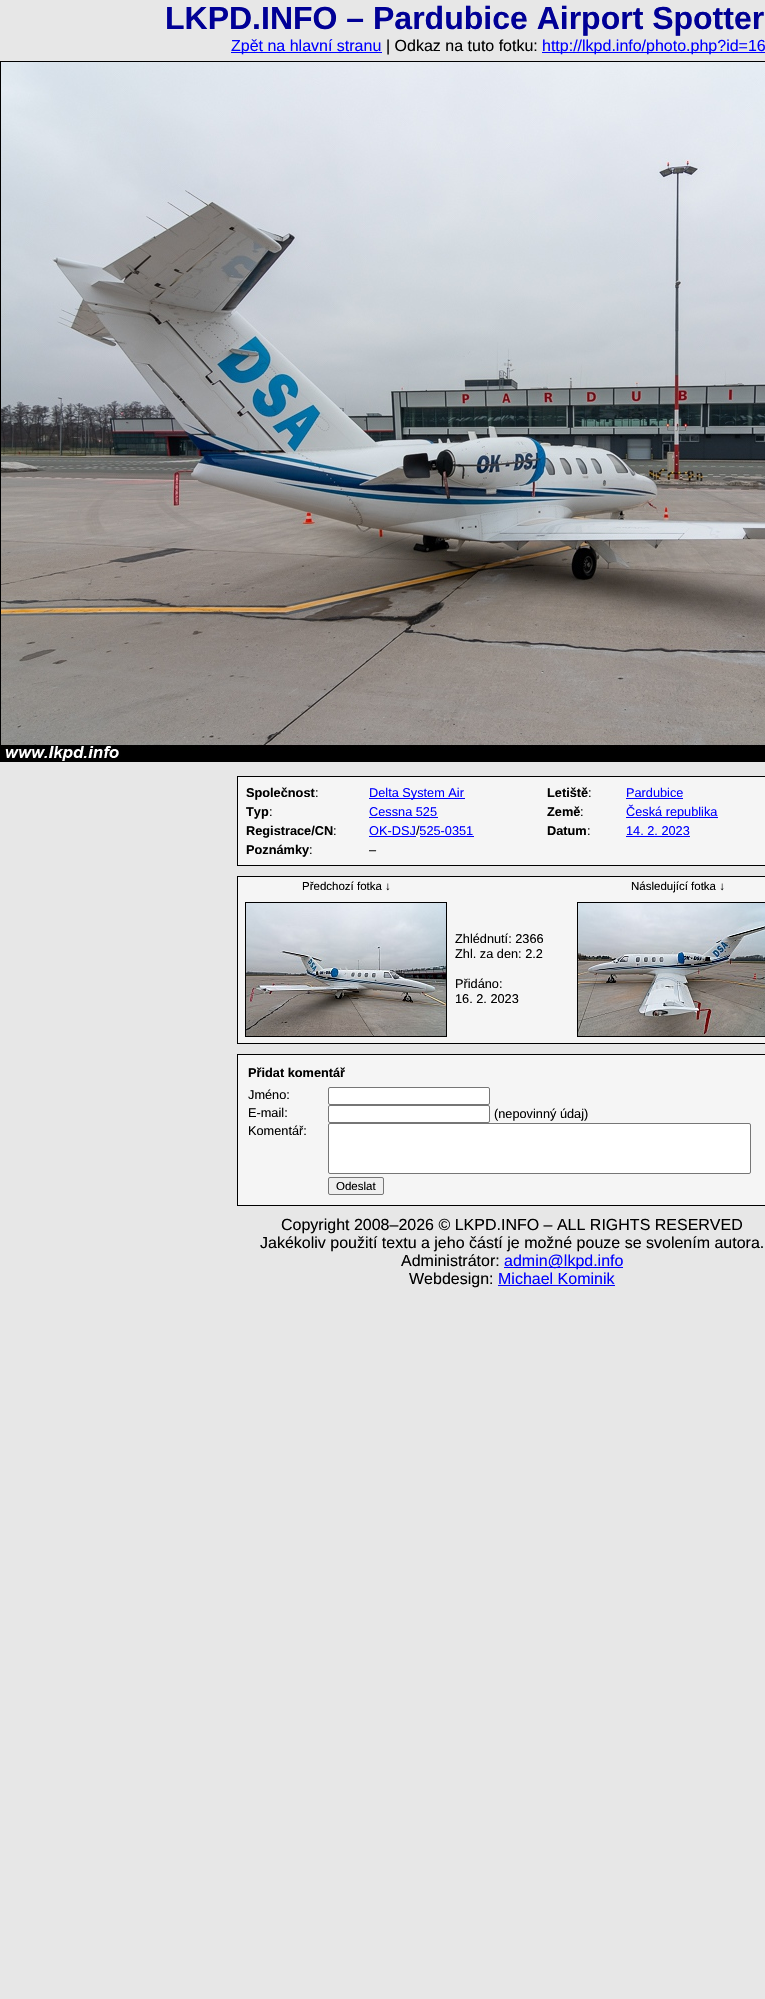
void draw(SkCanvas* canvas) {
  SkPaint paint;
  paint.setAntiAlias(true);
  auto face = [&](const char* family, int weight, float size, bool italic = false) {
    SkFontStyle style(weight, SkFontStyle::kNormal_Width,
      italic ? SkFontStyle::kItalic_Slant : SkFontStyle::kUpright_Slant);
    SkFont result(fontMgr->matchFamilyStyle(family, style), size);
    result.setSubpixel(true);
    return result;
  };
  auto paste = [&](const char* path, float x, float y, float w, float h) {
    auto image = SkImages::DeferredFromEncodedData(SkData::MakeFromFileName(path));
    canvas->drawImageRect(image, SkRect::MakeXYWH(x, y, w, h), SkSamplingOptions());
  };
  canvas->clear(0xffe7e7e7);
  {
    const struct { float x, y, w, h; SkColor color; } items[] = {
      {231, 52, 151, 1, 0xff0000ff},
      {542, 52, 223, 1, 0xff0000ff},
      {0, 61, 765, 1, 0xff000000},
      {0, 61, 1, 701, 0xff000000},
    };
    for (auto [x, y, w, h, color] : items) {
      paint.setColor(color);
      canvas->drawRect(SkRect::MakeXYWH(x, y, w, h), paint);
    }
  }
  paste("img/1.png", 1, 62, 764, 700);
  paint.setColor(0xfff5f5f5);
  canvas->drawRect(SkRect::MakeXYWH(237.5f, 776.5f, 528, 89), paint);
  paint.setStroke(true);
  paint.setStrokeWidth(1);
  paint.setColor(0xff000000);
  canvas->drawRect(SkRect::MakeXYWH(237.5f, 776.5f, 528, 89), paint);
  paint.setStroke(false);
  {
    const struct { float x, y, w, h; SkColor color; } items[] = {
      {369, 798, 96, 1, 0xff0000ff},
      {626, 798, 57, 1, 0xff0000ff},
      {369, 817, 69, 1, 0xff0000ff},
      {626, 817, 92, 1, 0xff0000ff},
      {369, 836, 47, 1, 0xff0000ff},
      {420, 836, 54, 1, 0xff0000ff},
      {626, 836, 64, 1, 0xff0000ff},
    };
    for (auto [x, y, w, h, color] : items) {
      paint.setColor(color);
      canvas->drawRect(SkRect::MakeXYWH(x, y, w, h), paint);
    }
  }
  paint.setColor(0xfff5f5f5);
  canvas->drawRect(SkRect::MakeXYWH(237.5f, 876.5f, 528, 167), paint);
  paint.setStroke(true);
  paint.setColor(0xff000000);
  canvas->drawRect(SkRect::MakeXYWH(237.5f, 876.5f, 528, 167), paint);
  canvas->drawRect(SkRect::MakeXYWH(245.5f, 902.5f, 201, 134), paint);
  paste("img/2.png", 246, 903, 200, 133);
  canvas->drawRect(SkRect::MakeXYWH(577.5f, 902.5f, 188, 134), paint);
  paste("img/3.png", 578, 903, 187, 133);
  paint.setStroke(false);
  paint.setColor(0xfff5f5f5);
  canvas->drawRect(SkRect::MakeXYWH(237.5f, 1054.5f, 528, 151), paint);
  paint.setStroke(true);
  paint.setColor(0xff000000);
  canvas->drawRect(SkRect::MakeXYWH(237.5f, 1054.5f, 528, 151), paint);
  paint.setStroke(false);
  paint.setColor(0xffffffff);
  canvas->drawRoundRect(SkRect::MakeXYWH(328.5f, 1087.5f, 161, 17), 1.5f, 1.5f, paint);
  paint.setStroke(true);
  paint.setColor(0xff767676);
  canvas->drawRoundRect(SkRect::MakeXYWH(328.5f, 1087.5f, 161, 17), 1.5f, 1.5f, paint);
  paint.setStroke(false);
  paint.setColor(0xffffffff);
  canvas->drawRoundRect(SkRect::MakeXYWH(328.5f, 1105.5f, 161, 17), 1.5f, 1.5f, paint);
  paint.setStroke(true);
  paint.setColor(0xff767676);
  canvas->drawRoundRect(SkRect::MakeXYWH(328.5f, 1105.5f, 161, 17), 1.5f, 1.5f, paint);
  paint.setStroke(false);
  paint.setColor(0xffffffff);
  canvas->drawRoundRect(SkRect::MakeXYWH(328.5f, 1123.5f, 422, 50), 1.5f, 1.5f, paint);
  paint.setStroke(true);
  paint.setColor(0xff767676);
  canvas->drawRoundRect(SkRect::MakeXYWH(328.5f, 1123.5f, 422, 50), 1.5f, 1.5f, paint);
  paint.setStroke(false);
  paint.setColor(0xffefefef);
  canvas->drawRoundRect(SkRect::MakeXYWH(328.5f, 1177.5f, 55, 17), 1.5f, 1.5f, paint);
  paint.setStroke(true);
  paint.setColor(0xff767676);
  canvas->drawRoundRect(SkRect::MakeXYWH(328.5f, 1177.5f, 55, 17), 1.5f, 1.5f, paint);
  paint.setStroke(false);
  paint.setColor(0xff0000ff);
  canvas->drawRect(SkRect::MakeXYWH(504, 1267, 119, 1), paint);
  canvas->drawRect(SkRect::MakeXYWH(498, 1285, 117, 1), paint);
  auto f0 = face("Liberation Sans", 700, 32);
  paint.setColor(0xff000096);
  canvas->drawString("LKPD.INFO – Pardubice Airport Spotter", 165, 29, f0, paint);
  auto f1 = face("Liberation Sans", 400, 16);
  paint.setColor(0xff0000ff);
  canvas->drawString("Zpět na hlavní stranu", 231, 51, f1, paint);
  paint.setColor(0xff000000);
  canvas->drawString("| Odkaz na tuto fotku:", 386, 51, f1, paint);
  paint.setColor(0xff0000ff);
  canvas->drawString("http://lkpd.info/photo.php?id=16", 542, 51, f1, paint);
  auto f2 = face("Liberation Sans", 700, 12.75f);
  paint.setColor(0xff000000);
  canvas->drawString("Společnost", 246, 797, f2, paint);
  auto f3 = face("Liberation Sans", 400, 12.75f);
  canvas->drawString(":", 315, 797, f3, paint);
  paint.setColor(0xff0000ff);
  canvas->drawString("Delta System Air", 369, 797, f3, paint);
  paint.setColor(0xff000000);
  canvas->drawString("Letiště", 547, 797, f2, paint);
  canvas->drawString(":", 588, 797, f3, paint);
  paint.setColor(0xff0000ff);
  canvas->drawString("Pardubice", 626, 797, f3, paint);
  paint.setColor(0xff000000);
  canvas->drawString("Typ", 246, 816, f2, paint);
  canvas->drawString(":", 269, 816, f3, paint);
  paint.setColor(0xff0000ff);
  canvas->drawString("Cessna 525", 369, 816, f3, paint);
  paint.setColor(0xff000000);
  canvas->drawString("Země", 547, 816, f2, paint);
  canvas->drawString(":", 580, 816, f3, paint);
  paint.setColor(0xff0000ff);
  canvas->drawString("Česká republika", 626, 816, f3, paint);
  paint.setColor(0xff000000);
  canvas->drawString("Registrace/CN", 246, 835, f2, paint);
  canvas->drawString(":", 333, 835, f3, paint);
  paint.setColor(0xff0000ff);
  canvas->drawString("OK-DSJ 525-0351", 369, 835, f3, paint);
  paint.setColor(0xff000000);
  canvas->drawString("/", 416, 835, f3, paint);
  canvas->drawString("Datum", 547, 835, f2, paint);
  canvas->drawString(":", 587, 835, f3, paint);
  paint.setColor(0xff0000ff);
  canvas->drawString("14. 2. 2023", 626, 835, f3, paint);
  paint.setColor(0xff000000);
  canvas->drawString("Poznámky", 246, 854, f2, paint);
  canvas->drawString(":", 309, 854, f3, paint);
  canvas->drawString("–", 369, 854, f3, paint);
  auto f4 = face("Liberation Sans", 400, 11.5f);
  canvas->drawString("Předchozí fotka ↓", 302, 890, f4, paint);
  canvas->drawString("Následující fotka ↓", 631, 890, f4, paint);
  {
    const struct { const char* s; float x, y; } items[] = {
      {"Zhlédnutí: 2366", 455, 943},
      {"Zhl. za den: 2.2", 455, 958},
      {"Přidáno:", 455, 988},
      {"16. 2. 2023", 455, 1003},
    };
    for (auto [s, x, y] : items) {
      canvas->drawString(s, x, y, f3, paint);
    }
  }
  canvas->drawString("Přidat komentář", 248, 1077, f2, paint);
  {
    const struct { const char* s; float x, y; } items[] = {
      {"Jméno:", 248, 1099},
      {"E-mail:", 248, 1117},
      {"(nepovinný údaj)", 494, 1118},
      {"Komentář:", 248, 1135},
    };
    for (auto [s, x, y] : items) {
      canvas->drawString(s, x, y, f3, paint);
    }
  }
  canvas->drawString("Odeslat", 336, 1190, f4, paint);
  {
    const struct { const char* s; float x, y; } items[] = {
      {"Copyright 2008–2026 © LKPD.INFO – ALL RIGHTS RESERVED", 281, 1230},
      {"Jakékoliv použití textu a jeho částí je možné pouze se svolením autora.", 260, 1248},
      {"Administrátor:", 401, 1266},
    };
    for (auto [s, x, y] : items) {
      canvas->drawString(s, x, y, f1, paint);
    }
  }
  paint.setColor(0xff0000ff);
  canvas->drawString("admin@lkpd.info", 504, 1266, f1, paint);
  paint.setColor(0xff000000);
  canvas->drawString("Webdesign:", 409, 1284, f1, paint);
  paint.setColor(0xff0000ff);
  canvas->drawString("Michael Kominik", 498, 1284, f1, paint);
}
